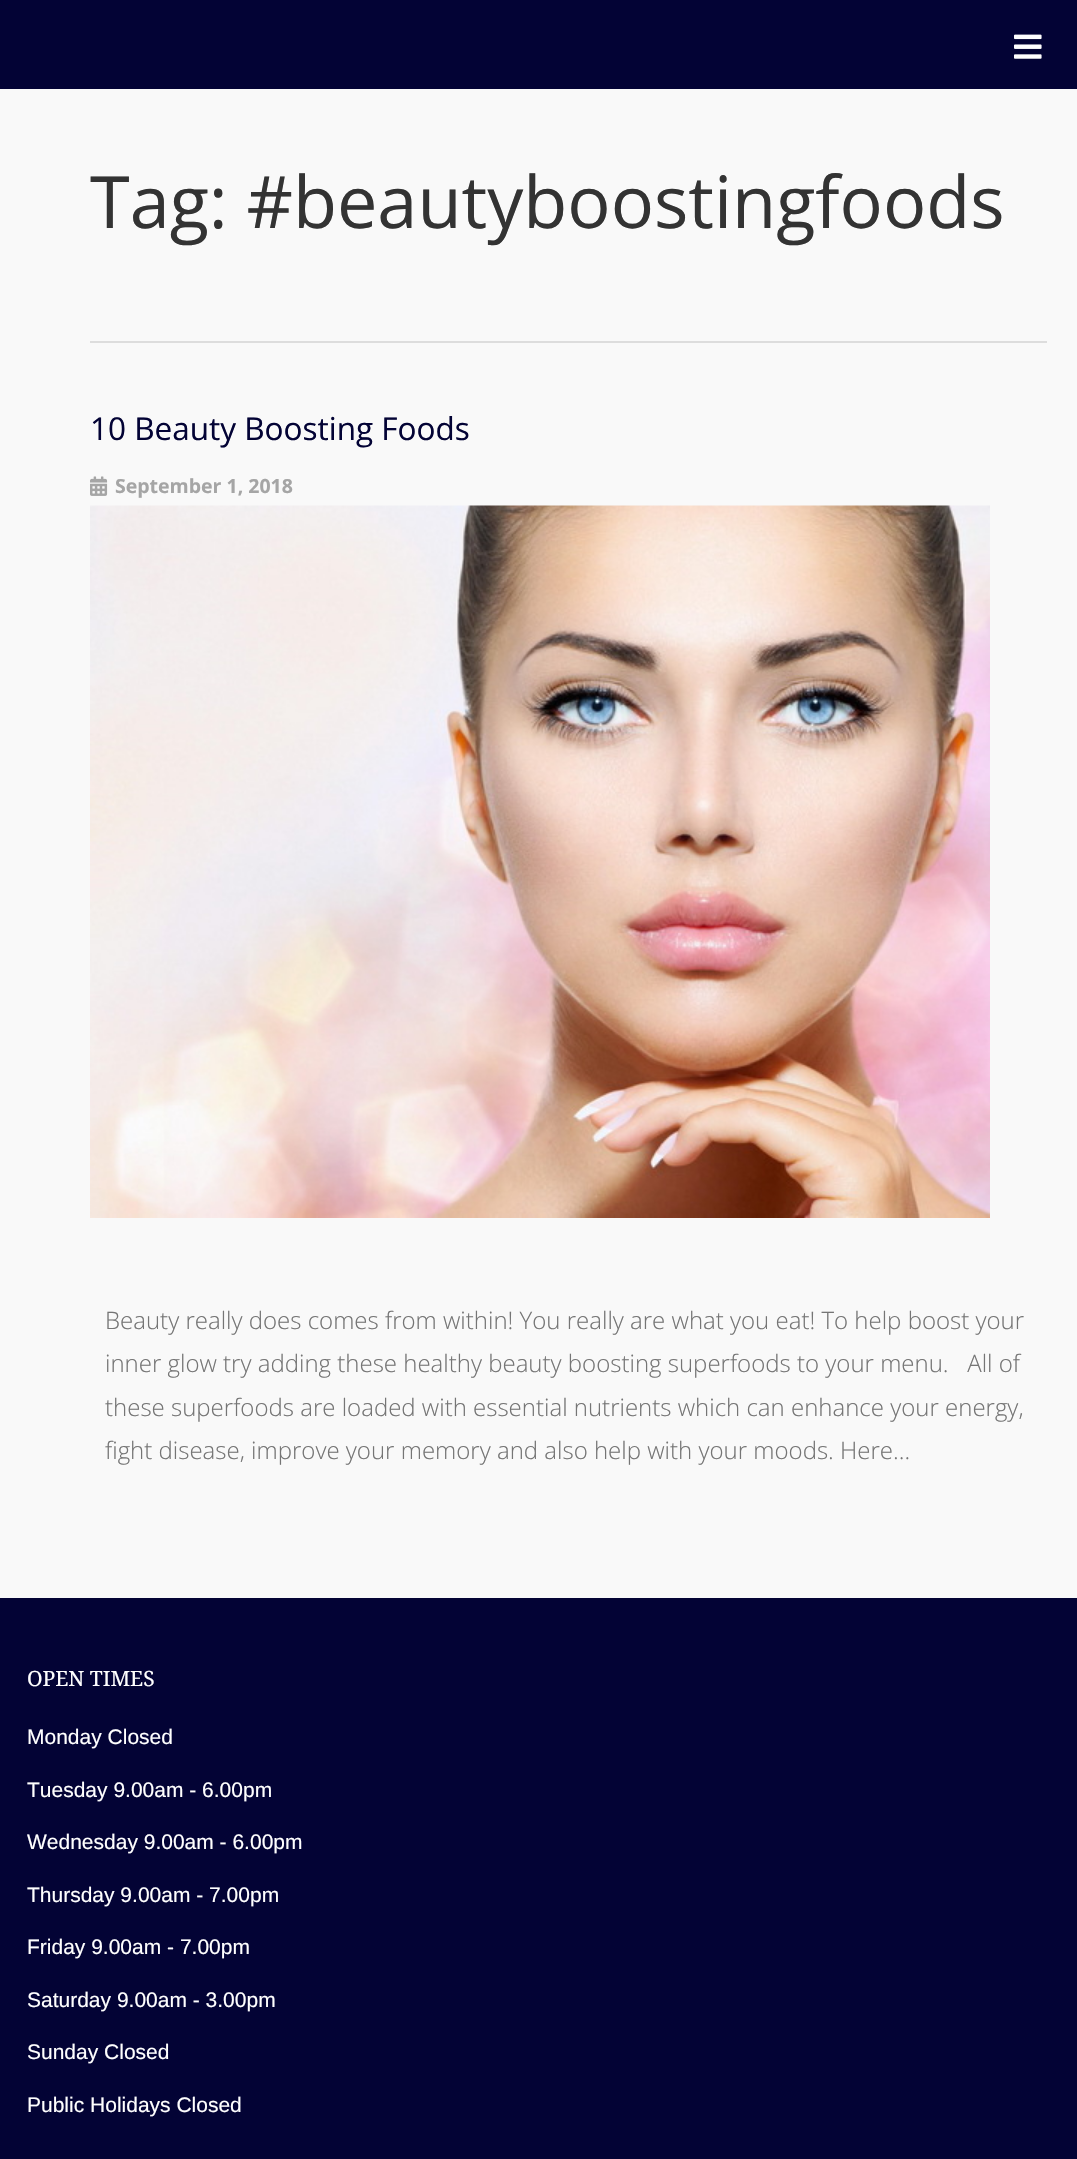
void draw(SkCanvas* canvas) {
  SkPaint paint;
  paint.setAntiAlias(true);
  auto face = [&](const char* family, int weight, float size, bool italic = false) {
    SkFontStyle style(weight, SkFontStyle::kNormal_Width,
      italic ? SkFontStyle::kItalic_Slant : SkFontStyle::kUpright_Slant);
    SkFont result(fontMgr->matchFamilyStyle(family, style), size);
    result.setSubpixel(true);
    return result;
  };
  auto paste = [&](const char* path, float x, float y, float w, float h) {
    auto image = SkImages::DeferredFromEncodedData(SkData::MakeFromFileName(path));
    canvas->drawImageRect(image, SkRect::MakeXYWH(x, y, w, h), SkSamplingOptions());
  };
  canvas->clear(0xfff9f9f9);
  paint.setColor(0xff030335);
  canvas->drawRect(SkRect::MakeXYWH(0, 0, 1077, 89), paint);
  paste("img/1.png", 1014, 34, 28, 25);
  paint.setColor(0xffdddddd);
  canvas->drawRect(SkRect::MakeXYWH(90, 341, 957, 2), paint);
  paste("img/2.png", 90, 476, 18, 20);
  paste("img/3.png", 90, 505, 900, 713);
  paint.setColor(0xff030335);
  canvas->drawRect(SkRect::MakeXYWH(0, 1598, 1077, 561), paint);
  auto f0 = face("Open Sans", 400, 72);
  paint.setColor(0xff333333);
  canvas->drawString("Tag: #beautyboostingfoods", 90, 228, f0, paint);
  auto f1 = face("Open Sans", 400, 31.5f);
  paint.setColor(0xff030335);
  canvas->drawString("10 Beauty Boosting Foods", 90, 440, f1, paint);
  auto f2 = face("Open Sans", 700, 19.5f);
  paint.setColor(0xffa5a5a5);
  canvas->drawString("September 1, 2018", 115, 493, f2, paint);
  auto f3 = face("Open Sans", 300, 24);
  paint.setColor(0xff757575);
  {
    const struct { const char* s; float x, y; } items[] = {
      {"Beauty really does comes from within! You really are what you eat! To help boost your", 105, 1329},
      {"inner glow try adding these healthy beauty boosting superfoods to your menu.   All of", 105, 1372},
      {"these superfoods are loaded with essential nutrients which can enhance your energy,", 105, 1416},
      {"fight disease, improve your memory and also help with your moods. Here…", 105, 1459},
    };
    for (auto [s, x, y] : items) {
      canvas->drawString(s, x, y, f3, paint);
    }
  }
  auto f4 = face("Droid Serif", 400, 21);
  paint.setColor(0xffffffff);
  canvas->drawString("OPEN TIMES", 27, 1686, f4, paint);
  auto f5 = face("Liberation Sans", 400, 21);
  {
    const struct { const char* s; float x, y; } items[] = {
      {"Monday Closed", 27, 1744},
      {"Tuesday 9.00am - 6.00pm", 27, 1797},
      {"Wednesday 9.00am - 6.00pm", 27, 1849},
      {"Thursday 9.00am - 7.00pm", 27, 1902},
      {"Friday 9.00am - 7.00pm", 27, 1954},
      {"Saturday 9.00am - 3.00pm", 27, 2007},
      {"Sunday Closed", 27, 2059},
      {"Public Holidays Closed", 27, 2112},
    };
    for (auto [s, x, y] : items) {
      canvas->drawString(s, x, y, f5, paint);
    }
  }
}
